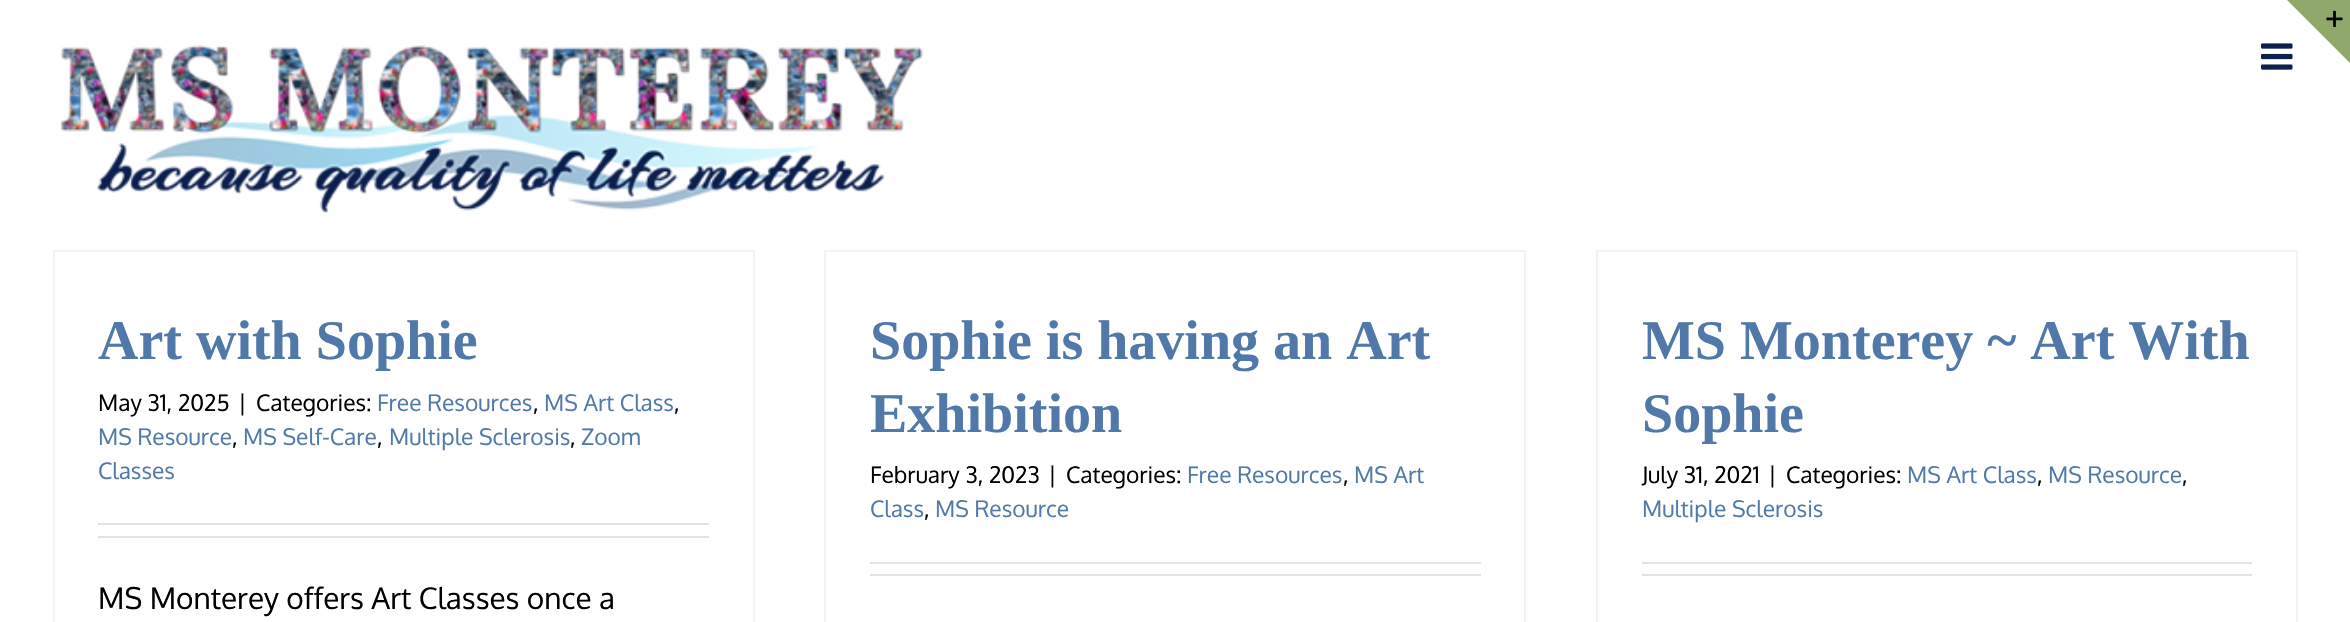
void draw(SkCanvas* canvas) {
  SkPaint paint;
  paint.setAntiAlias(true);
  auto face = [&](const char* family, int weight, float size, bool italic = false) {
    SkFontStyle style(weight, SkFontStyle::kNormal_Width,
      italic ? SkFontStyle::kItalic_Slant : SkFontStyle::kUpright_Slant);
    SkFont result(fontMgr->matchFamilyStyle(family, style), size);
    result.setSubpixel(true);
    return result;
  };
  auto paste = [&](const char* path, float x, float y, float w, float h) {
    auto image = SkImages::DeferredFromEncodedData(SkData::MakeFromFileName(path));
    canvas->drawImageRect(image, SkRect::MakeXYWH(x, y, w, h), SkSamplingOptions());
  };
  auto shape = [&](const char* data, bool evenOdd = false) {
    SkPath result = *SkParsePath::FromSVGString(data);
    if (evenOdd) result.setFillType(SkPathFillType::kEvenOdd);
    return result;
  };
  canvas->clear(0xffffffff);
  paste("img/3.png", 2261, 43, 32, 27);
  paint.setColor(0xff8fa96c);
  canvas->drawPath(shape("M2287 0H2350V63Z"), paint);
  paste("img/1.png", 2326, 10, 17, 17);
  paste("img/2.png", 60, 45, 863, 168);
  {
    const struct { float x, y, w, h; SkColor color; } items[] = {
      {53, 250, 701, 2, 0xfff2f3f5},
      {753, 250, 2, 372, 0xfff2f3f5},
      {53, 250, 2, 372, 0xfff2f3f5},
      {98, 523, 611, 2, 0xffe2e2e2},
      {98, 536, 611, 2, 0xffe2e2e2},
      {824, 250, 702, 2, 0xfff2f3f5},
      {1524, 250, 2, 372, 0xfff2f3f5},
      {824, 250, 2, 372, 0xfff2f3f5},
      {870, 562, 611, 2, 0xffe2e2e2},
      {870, 574, 611, 2, 0xffe2e2e2},
      {1596, 250, 702, 2, 0xfff2f3f5},
      {2296, 250, 2, 372, 0xfff2f3f5},
      {1596, 250, 2, 372, 0xfff2f3f5},
      {1642, 562, 610, 2, 0xffe2e2e2},
      {1642, 574, 610, 2, 0xffe2e2e2},
    };
    for (auto [x, y, w, h, color] : items) {
      paint.setColor(color);
      canvas->drawRect(SkRect::MakeXYWH(x, y, w, h), paint);
    }
  }
  auto f0 = face("Liberation Serif", 700, 56);
  paint.setColor(0xff5079aa);
  canvas->drawString("Art with Sophie", 98, 359, f0, paint);
  auto f1 = face("Oxygen", 400, 22.75f);
  paint.setColor(0xff000000);
  {
    const struct { const char* s; float x, y; } items[] = {
      {"May 31, 2025", 98, 411},
      {"|", 238, 411},
      {"Categories:", 256, 411},
    };
    for (auto [s, x, y] : items) {
      canvas->drawString(s, x, y, f1, paint);
    }
  }
  paint.setColor(0xff5079aa);
  canvas->drawString("Free Resources", 377, 411, f1, paint);
  paint.setColor(0xff000000);
  canvas->drawString(",", 533, 411, f1, paint);
  paint.setColor(0xff5079aa);
  canvas->drawString("MS Art Class", 544, 411, f1, paint);
  paint.setColor(0xff000000);
  canvas->drawString(",", 674, 411, f1, paint);
  paint.setColor(0xff5079aa);
  canvas->drawString("MS Resource", 98, 445, f1, paint);
  paint.setColor(0xff000000);
  canvas->drawString(",", 232, 445, f1, paint);
  paint.setColor(0xff5079aa);
  canvas->drawString("MS Self-Care", 243, 445, f1, paint);
  paint.setColor(0xff000000);
  canvas->drawString(",", 377, 445, f1, paint);
  paint.setColor(0xff5079aa);
  canvas->drawString("Multiple Sclerosis", 389, 445, f1, paint);
  paint.setColor(0xff000000);
  canvas->drawString(",", 570, 445, f1, paint);
  paint.setColor(0xff5079aa);
  canvas->drawString("Zoom", 581, 445, f1, paint);
  canvas->drawString("Classes", 98, 479, f1, paint);
  auto f2 = face("Oxygen", 400, 29.75f);
  paint.setColor(0xff000000);
  canvas->drawString("MS Monterey offers Art Classes once a", 98, 609, f2, paint);
  paint.setColor(0xff5079aa);
  canvas->drawString("Sophie is having an Art", 870, 359, f0, paint);
  canvas->drawString("Exhibition", 870, 432, f0, paint);
  paint.setColor(0xff000000);
  {
    const struct { const char* s; float x, y; } items[] = {
      {"February 3, 2023", 870, 483},
      {"|", 1048, 483},
      {"Categories:", 1066, 483},
    };
    for (auto [s, x, y] : items) {
      canvas->drawString(s, x, y, f1, paint);
    }
  }
  paint.setColor(0xff5079aa);
  canvas->drawString("Free Resources", 1187, 483, f1, paint);
  paint.setColor(0xff000000);
  canvas->drawString(",", 1343, 483, f1, paint);
  paint.setColor(0xff5079aa);
  canvas->drawString("MS Art", 1354, 483, f1, paint);
  canvas->drawString("Class", 870, 517, f1, paint);
  paint.setColor(0xff000000);
  canvas->drawString(",", 924, 517, f1, paint);
  paint.setColor(0xff5079aa);
  canvas->drawString("MS Resource", 935, 517, f1, paint);
  canvas->drawString("MS Monterey ~ Art With", 1642, 359, f0, paint);
  canvas->drawString("Sophie", 1642, 432, f0, paint);
  paint.setColor(0xff000000);
  {
    const struct { const char* s; float x, y; } items[] = {
      {"July 31, 2021", 1642, 483},
      {"|", 1768, 483},
      {"Categories:", 1786, 483},
    };
    for (auto [s, x, y] : items) {
      canvas->drawString(s, x, y, f1, paint);
    }
  }
  paint.setColor(0xff5079aa);
  canvas->drawString("MS Art Class", 1907, 483, f1, paint);
  paint.setColor(0xff000000);
  canvas->drawString(",", 2037, 483, f1, paint);
  paint.setColor(0xff5079aa);
  canvas->drawString("MS Resource", 2048, 483, f1, paint);
  paint.setColor(0xff000000);
  canvas->drawString(",", 2182, 483, f1, paint);
  paint.setColor(0xff5079aa);
  canvas->drawString("Multiple Sclerosis", 1642, 517, f1, paint);
}
